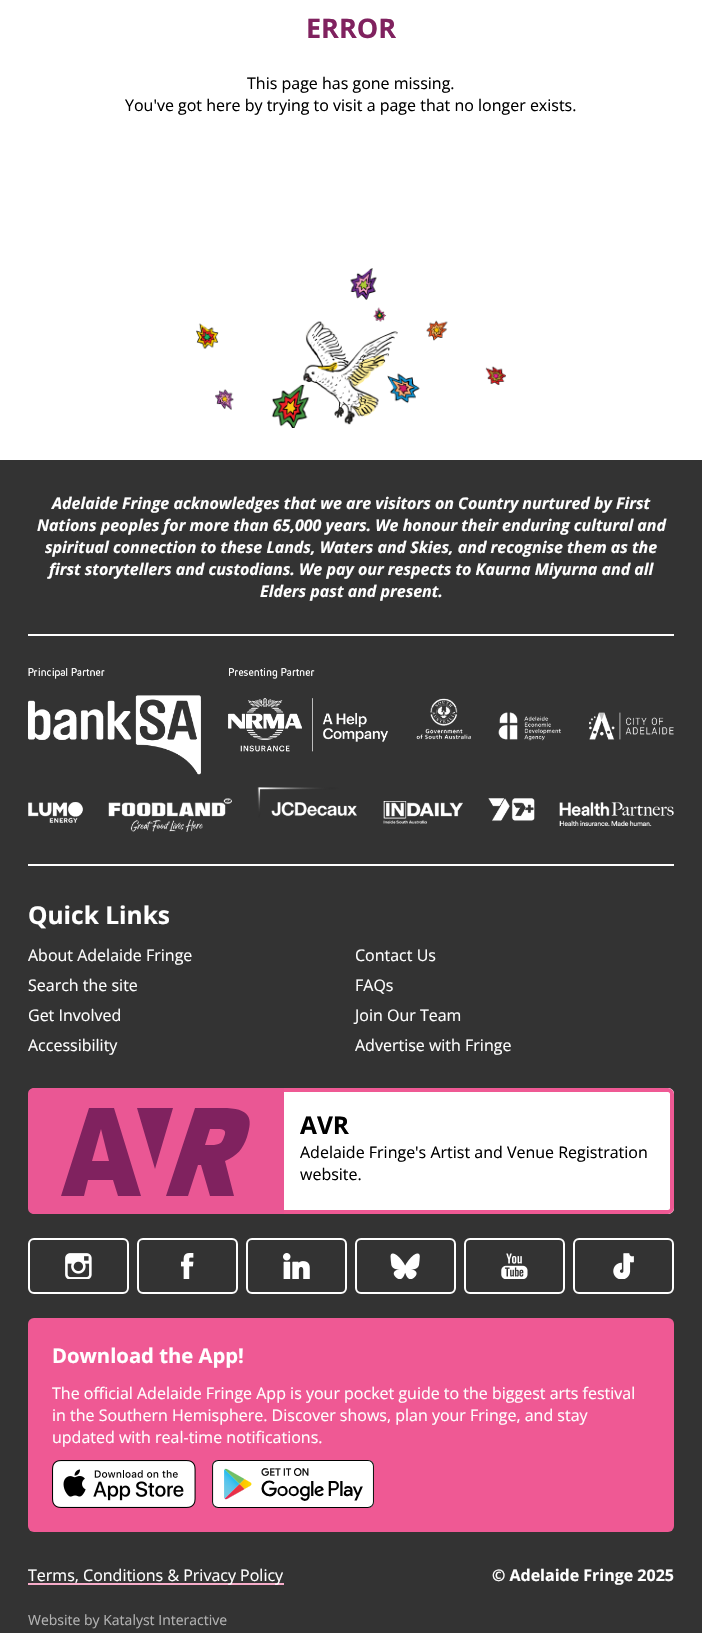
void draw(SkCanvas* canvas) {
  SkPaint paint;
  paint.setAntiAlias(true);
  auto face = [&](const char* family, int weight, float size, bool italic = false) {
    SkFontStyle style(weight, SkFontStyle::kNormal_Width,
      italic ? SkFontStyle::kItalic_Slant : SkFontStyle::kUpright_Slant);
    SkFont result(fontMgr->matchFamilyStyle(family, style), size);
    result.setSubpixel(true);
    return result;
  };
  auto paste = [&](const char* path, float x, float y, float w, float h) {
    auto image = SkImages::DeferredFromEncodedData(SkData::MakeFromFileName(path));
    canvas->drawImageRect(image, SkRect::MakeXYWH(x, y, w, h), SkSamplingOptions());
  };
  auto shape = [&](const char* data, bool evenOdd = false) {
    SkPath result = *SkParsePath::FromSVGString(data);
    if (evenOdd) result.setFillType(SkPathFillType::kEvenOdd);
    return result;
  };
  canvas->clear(0xffffffff);
  paste("img/1.png", 196, 268, 310, 160);
  paint.setColor(0xff333333);
  canvas->drawRect(SkRect::MakeXYWH(0, 460, 702, 1173), paint);
  paint.setColor(0xffffffff);
  canvas->drawRect(SkRect::MakeXYWH(28, 634, 646, 2), paint);
  paste("img/2.png", 28, 668, 646, 164);
  canvas->drawRect(SkRect::MakeXYWH(28, 864, 646, 2), paint);
  paint.setColor(0xffea5794);
  canvas->drawPath(shape("M34 1088H284V1214H34C30.5 1214 28 1211.5 28 1208V1094C28 1090.5 30.5 1088 34 1088Z"), paint);
  paint.setColor(0xff80225f);
  canvas->drawPath(shape("M89 1108L61 1196H84L88 1180H113L118 1196H141L114 1108ZM137 1108L155 1169L173 1108ZM195 1108L166 1196H188L198 1165H201L210 1196H234L225 1161C237 1156 243 1149 247 1137C253 1118 251 1108 222 1108ZM210 1129H217C224 1129 227 1130 224 1137C222 1143 220 1145 211 1145H205ZM101 1129L109 1161H92Z"), paint);
  paint.setColor(0xffffffff);
  canvas->drawPath(shape("M284 1088H668C671.5 1088 674 1090.5 674 1094V1208C674 1211.5 671.5 1214 668 1214H284Z"), paint);
  paint.setColor(0xffef5994);
  canvas->drawPath(shape("M284 1088H668C671 1088 674 1091 674 1094V1208C674 1211 671 1214 668 1214H284ZM284 1092H668C669 1092 670 1093 670 1094V1208C670 1209 669 1210 668 1210H284Z", true), paint);
  paint.setStroke(true);
  paint.setStrokeWidth(2);
  paint.setColor(0xffffffff);
  canvas->drawRoundRect(SkRect::MakeXYWH(29, 1239, 99, 54), 5, 5, paint);
  paste("img/3.png", 65, 1253, 27, 26);
  canvas->drawRoundRect(SkRect::MakeXYWH(138, 1239, 99, 54), 5, 5, paint);
  paste("img/4.png", 181, 1253, 13, 26);
  canvas->drawRoundRect(SkRect::MakeXYWH(247, 1239, 99, 54), 5, 5, paint);
  paste("img/5.png", 283, 1253, 27, 26);
  canvas->drawRoundRect(SkRect::MakeXYWH(356, 1239, 99, 54), 5, 5, paint);
  paste("img/6.png", 390, 1253, 30, 26);
  canvas->drawRoundRect(SkRect::MakeXYWH(465, 1239, 99, 54), 5, 5, paint);
  paste("img/7.png", 501, 1253, 27, 26);
  canvas->drawRoundRect(SkRect::MakeXYWH(574, 1239, 99, 54), 5, 5, paint);
  paste("img/8.png", 613, 1253, 21, 26);
  paint.setStroke(false);
  paint.setColor(0xffef5994);
  canvas->drawRoundRect(SkRect::MakeXYWH(28, 1318, 646, 214), 6, 6, paint);
  paste("img/9.png", 52, 1460, 144, 48);
  paste("img/10.png", 212, 1460, 162, 48);
  paint.setColor(0xfff7acc9);
  canvas->drawRect(SkRect::MakeXYWH(28, 1583, 256, 2), paint);
  auto f0 = face("Open Sans", 700, 27);
  paint.setColor(0xff80225f);
  canvas->drawString("ERROR", 306, 38, f0, paint);
  auto f1 = face("Open Sans", 400, 16);
  paint.setColor(0xff000000);
  canvas->drawString("This page has gone missing.", 247, 89, f1, paint);
  canvas->drawString("You've got here by trying to visit a page that no longer exists.", 125, 111, f1, paint);
  auto f2 = face("Open Sans", 700, 16, true);
  paint.setColor(0xffffffff);
  {
    const struct { const char* s; float x, y; } items[] = {
      {"Adelaide Fringe acknowledges that we are visitors on Country nurtured by First", 52, 509},
      {"Nations peoples for more than 65,000 years. We honour their enduring cultural and", 37, 531},
      {"spiritual connection to these Lands, Waters and Skies, and recognise them as the", 45, 553},
      {"first storytellers and custodians. We pay our respects to Kaurna Miyurna and all", 49, 575},
      {"Elders past and present.", 260, 597},
    };
    for (auto [s, x, y] : items) {
      canvas->drawString(s, x, y, f2, paint);
    }
  }
  auto f3 = face("Open Sans", 700, 24.5f);
  canvas->drawString("Quick Links", 28, 924, f3, paint);
  {
    const struct { const char* s; float x, y; } items[] = {
      {"About Adelaide Fringe", 28, 961},
      {"Contact Us", 355, 961},
      {"Search the site", 28, 991},
      {"FAQs", 355, 991},
      {"Get Involved", 28, 1021},
      {"Join Our Team", 355, 1021},
      {"Accessibility", 28, 1051},
      {"Advertise with Fringe", 355, 1051},
    };
    for (auto [s, x, y] : items) {
      canvas->drawString(s, x, y, f1, paint);
    }
  }
  paint.setColor(0xff000000);
  canvas->drawString("AVR", 300, 1134, f3, paint);
  canvas->drawString("Adelaide Fringe's Artist and Venue Registration", 300, 1158, f1, paint);
  canvas->drawString("website.", 300, 1180, f1, paint);
  auto f4 = face("Open Sans", 700, 20.25f);
  paint.setColor(0xffffffff);
  canvas->drawString("Download the App!", 52, 1363, f4, paint);
  {
    const struct { const char* s; float x, y; } items[] = {
      {"The official Adelaide Fringe App is your pocket guide to the biggest arts festival", 52, 1399},
      {"in the Southern Hemisphere. Discover shows, plan your Fringe, and stay", 52, 1421},
      {"updated with real-time notifications.", 52, 1443},
      {"Terms, Conditions & Privacy Policy", 28, 1581},
    };
    for (auto [s, x, y] : items) {
      canvas->drawString(s, x, y, f1, paint);
    }
  }
  auto f5 = face("Open Sans", 700, 16);
  canvas->drawString("© Adelaide Fringe 2025", 492, 1581, f5, paint);
  auto f6 = face("Open Sans", 400, 14);
  paint.setColor(0xffb3b3b3);
  canvas->drawString("Website by Katalyst Interactive", 28, 1625, f6, paint);
}
